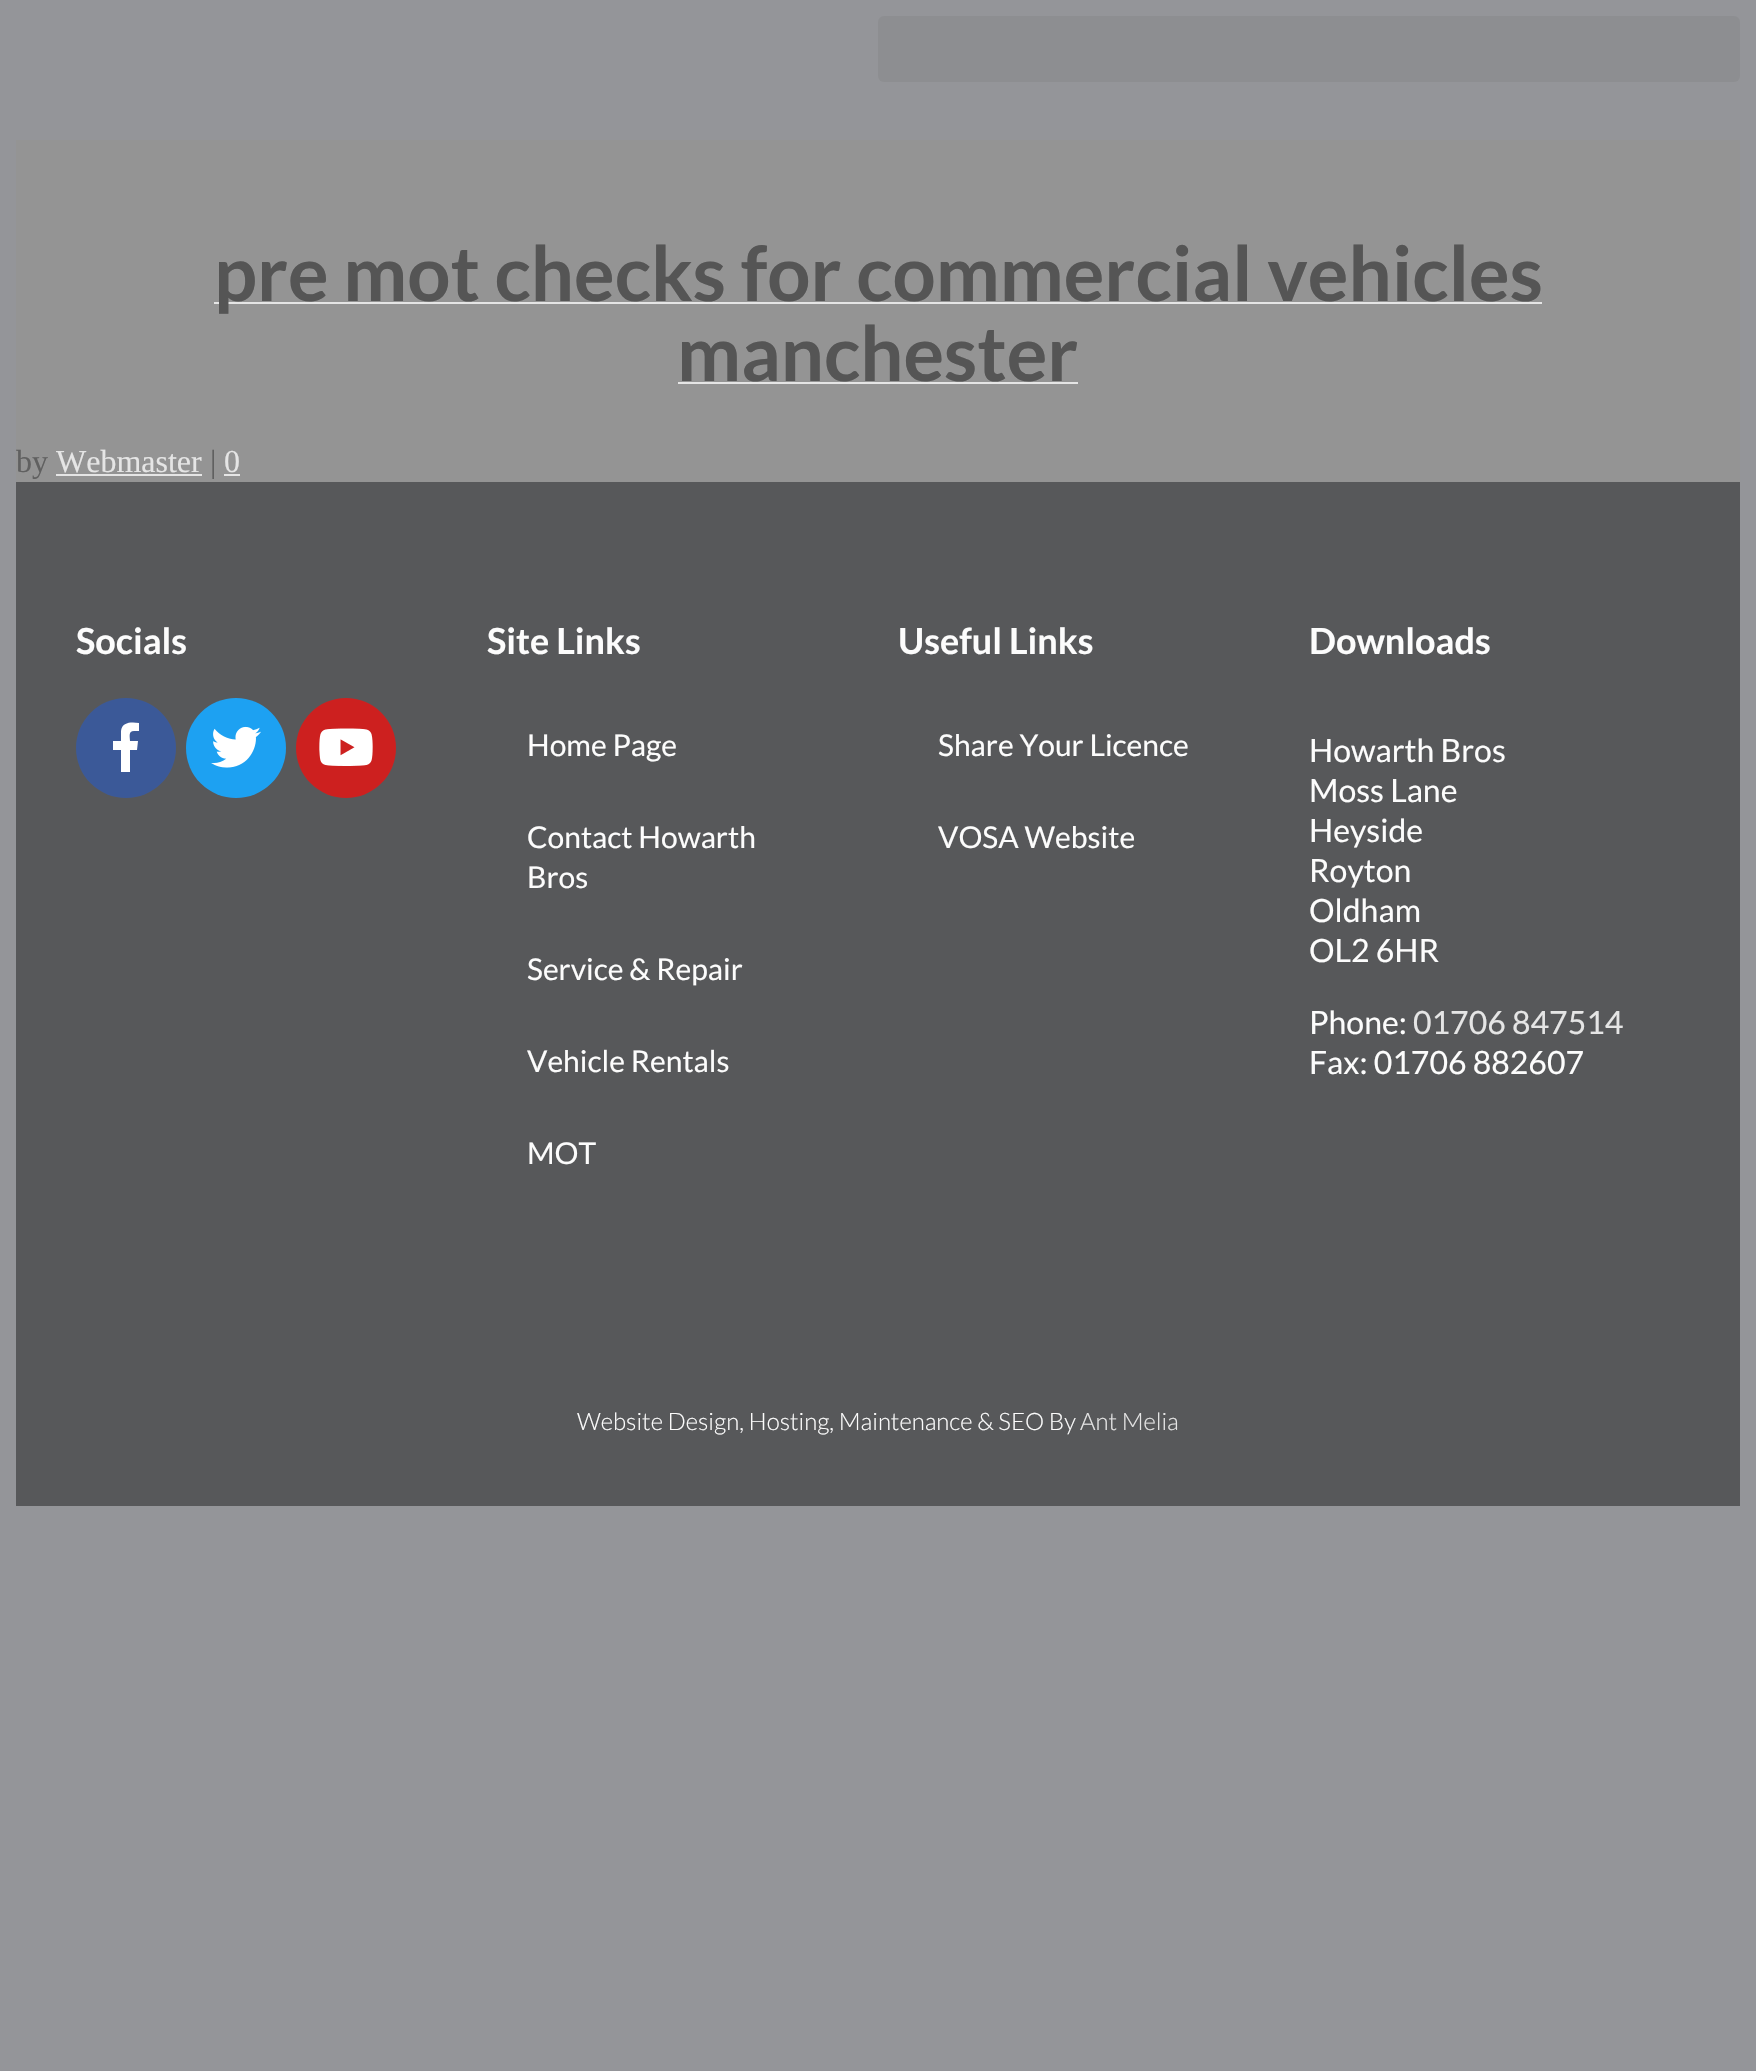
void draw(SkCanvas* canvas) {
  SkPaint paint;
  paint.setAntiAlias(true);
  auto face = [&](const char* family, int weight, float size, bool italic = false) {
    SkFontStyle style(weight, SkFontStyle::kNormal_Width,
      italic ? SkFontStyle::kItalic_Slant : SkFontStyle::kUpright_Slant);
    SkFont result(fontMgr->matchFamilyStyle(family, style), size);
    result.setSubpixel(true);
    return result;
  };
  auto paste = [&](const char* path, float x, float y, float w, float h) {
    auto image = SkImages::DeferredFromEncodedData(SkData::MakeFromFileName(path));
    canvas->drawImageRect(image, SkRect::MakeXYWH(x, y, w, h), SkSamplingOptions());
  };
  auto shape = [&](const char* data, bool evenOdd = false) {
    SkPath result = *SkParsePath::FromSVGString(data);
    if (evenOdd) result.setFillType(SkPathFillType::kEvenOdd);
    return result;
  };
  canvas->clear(0xff949599);
  paint.setColor(0xff8d8e91);
  canvas->drawRoundRect(SkRect::MakeXYWH(878, 16, 862, 66), 6, 6, paint);
  {
    const struct { float x, y, w, h; SkColor color; } items[] = {
      {16, 140, 1724, 342, 0xff949494},
      {214, 302, 1328, 2, 0xffe5e5e5},
      {678, 382, 400, 2, 0xffe5e5e5},
      {56, 474, 146, 2, 0xffe5e5e5},
      {224, 474, 16, 2, 0xffe5e5e5},
      {16, 482, 1724, 1024, 0xff57585a},
    };
    for (auto [x, y, w, h, color] : items) {
      paint.setColor(color);
      canvas->drawRect(SkRect::MakeXYWH(x, y, w, h), paint);
    }
  }
  paint.setColor(0xff3b5998);
  canvas->drawCircle(126, 748, 50, paint);
  paint.setColor(0xffffffff);
  canvas->drawPath(shape("M134 731C128 731 130 737 130 741H138L137 750H130V772H121V750H113V741H121V731C122 722 131 722 139 723V731Z"), paint);
  paint.setColor(0xff1da1f2);
  canvas->drawCircle(236, 748, 50, paint);
  paste("img/1.png", 211, 726, 50, 42);
  paint.setColor(0xffcd201f);
  canvas->drawCircle(346, 748, 50, paint);
  paste("img/2.png", 319, 728, 54, 38);
  auto f0 = face("Lato", 700, 76);
  paint.setColor(0xff555555);
  canvas->drawString("pre mot checks for commercial vehicles", 214, 301, f0, paint);
  canvas->drawString("manchester", 677, 381, f0, paint);
  auto f1 = face("Liberation Serif", 400, 32);
  paint.setColor(0xff606060);
  canvas->drawString("by", 16, 472, f1, paint);
  paint.setColor(0xffe5e5e5);
  canvas->drawString("Webmaster", 56, 472, f1, paint);
  paint.setColor(0xff606060);
  canvas->drawString("|", 210, 472, f1, paint);
  paint.setColor(0xffe5e5e5);
  canvas->drawString("0", 224, 472, f1, paint);
  auto f2 = face("Lato", 700, 36);
  paint.setColor(0xfffcfcfc);
  canvas->drawString("Socials", 76, 654, f2, paint);
  canvas->drawString("Site Links", 487, 654, f2, paint);
  auto f3 = face("Lato", 400, 30);
  {
    const struct { const char* s; float x, y; } items[] = {
      {"Home Page", 527, 756},
      {"Contact Howarth", 527, 848},
      {"Bros", 527, 888},
      {"Service & Repair", 527, 980},
      {"Vehicle Rentals", 527, 1072},
      {"MOT", 527, 1164},
    };
    for (auto [s, x, y] : items) {
      canvas->drawString(s, x, y, f3, paint);
    }
  }
  canvas->drawString("Useful Links", 898, 654, f2, paint);
  canvas->drawString("Share Your Licence", 938, 756, f3, paint);
  canvas->drawString("VOSA Website", 938, 848, f3, paint);
  canvas->drawString("Downloads", 1309, 654, f2, paint);
  auto f4 = face("Lato", 400, 32);
  {
    const struct { const char* s; float x, y; } items[] = {
      {"Howarth Bros", 1309, 762},
      {"Moss Lane", 1309, 802},
      {"Heyside", 1309, 842},
      {"Royton", 1309, 882},
      {"Oldham", 1309, 922},
      {"OL2 6HR", 1309, 962},
      {"Phone:", 1309, 1034},
    };
    for (auto [s, x, y] : items) {
      canvas->drawString(s, x, y, f4, paint);
    }
  }
  paint.setColor(0xffe5e5e5);
  canvas->drawString("01706 847514", 1413, 1034, f4, paint);
  paint.setColor(0xfffcfcfc);
  canvas->drawString("Fax: 01706 882607", 1309, 1074, f4, paint);
  auto f5 = face("Lato", 300, 24);
  canvas->drawString("Website Design, Hosting, Maintenance & SEO By", 577, 1430, f5, paint);
  paint.setColor(0xffe5e5e5);
  canvas->drawString("Ant Melia", 1080, 1430, f5, paint);
}
